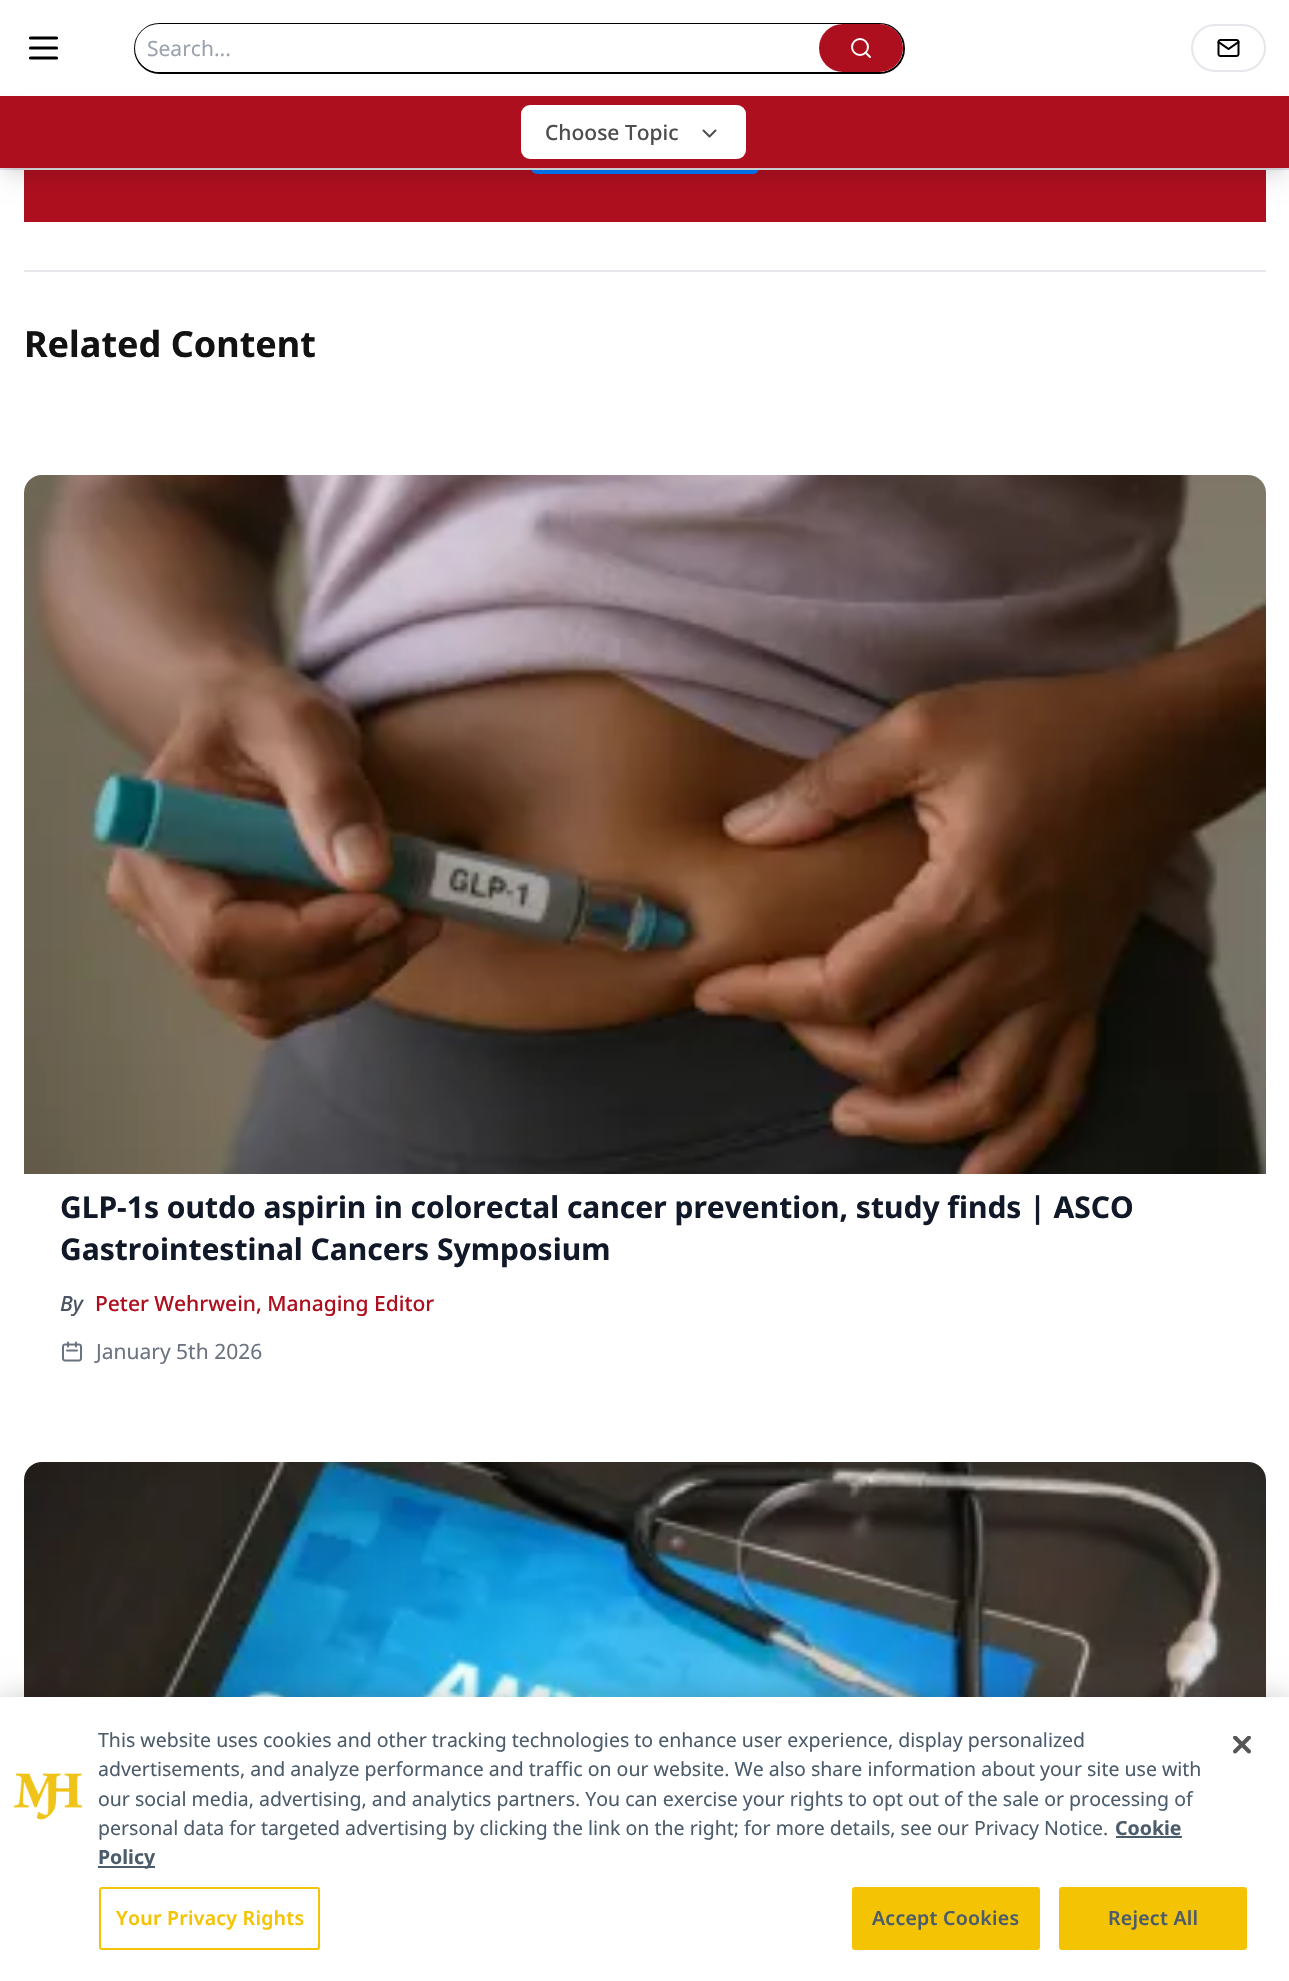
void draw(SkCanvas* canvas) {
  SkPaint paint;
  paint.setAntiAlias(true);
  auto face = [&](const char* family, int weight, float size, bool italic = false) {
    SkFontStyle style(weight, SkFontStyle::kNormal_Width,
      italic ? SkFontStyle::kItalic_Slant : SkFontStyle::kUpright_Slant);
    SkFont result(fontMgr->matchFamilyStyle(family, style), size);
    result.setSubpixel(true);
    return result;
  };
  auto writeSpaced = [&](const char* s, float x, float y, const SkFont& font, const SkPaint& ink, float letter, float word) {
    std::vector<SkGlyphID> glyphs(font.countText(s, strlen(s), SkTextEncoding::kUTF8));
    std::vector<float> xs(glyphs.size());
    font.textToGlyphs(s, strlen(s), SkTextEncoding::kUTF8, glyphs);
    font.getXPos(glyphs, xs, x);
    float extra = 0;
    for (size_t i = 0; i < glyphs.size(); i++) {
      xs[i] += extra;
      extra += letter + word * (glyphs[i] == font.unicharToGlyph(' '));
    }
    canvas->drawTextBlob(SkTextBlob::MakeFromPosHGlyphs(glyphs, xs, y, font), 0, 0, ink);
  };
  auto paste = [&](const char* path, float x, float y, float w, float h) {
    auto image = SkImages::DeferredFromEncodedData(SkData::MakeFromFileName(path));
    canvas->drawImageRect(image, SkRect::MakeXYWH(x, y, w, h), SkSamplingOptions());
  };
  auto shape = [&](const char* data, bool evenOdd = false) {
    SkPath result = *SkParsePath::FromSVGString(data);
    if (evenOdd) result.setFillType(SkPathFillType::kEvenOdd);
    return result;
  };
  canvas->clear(0xffffffff);
  paint.setColor(0xffae0f1f);
  canvas->drawRect(SkRect::MakeXYWH(24, 170, 1242, 52), paint);
  paint.setColor(0xff007bfd);
  canvas->drawRoundRect(SkRect::MakeXYWH(531, 90, 228, 84), 6, 6, paint);
  paint.setColor(0xffffffff);
  canvas->drawRect(SkRect::MakeXYWH(531, 90, 228, 6), paint);
  paint.setColor(0xffe5e7eb);
  canvas->drawRect(SkRect::MakeXYWH(0, 168, 1289, 2), paint);
  paint.setStroke(true);
  paint.setStrokeWidth(3.2f);
  paint.setStrokeCap(SkPaint::kRound_Cap);
  paint.setStrokeJoin(SkPaint::kRound_Join);
  paint.setColor(0xff000000);
  canvas->drawPath(shape("M30.5 38H56.5M30.5 48H56.5M30.5 58H56.5"), paint);
  paint.setStrokeWidth(2);
  paint.setStrokeCap(SkPaint::kButt_Cap);
  paint.setStrokeJoin(SkPaint::kMiter_Join);
  canvas->drawRoundRect(SkRect::MakeXYWH(135, 24, 769, 49), 24.5f, 24.5f, paint);
  paint.setStroke(false);
  paint.setColor(0xffffffff);
  canvas->drawRoundRect(SkRect::MakeXYWH(135, 24, 768, 48), 24, 24, paint);
  paint.setColor(0xffae0f1f);
  canvas->drawRoundRect(SkRect::MakeXYWH(819, 24, 84, 48), 24, 24, paint);
  paint.setStroke(true);
  paint.setColor(0xffffffff);
  canvas->drawCircle(860, 47, 8, paint);
  paint.setStrokeCap(SkPaint::kRound_Cap);
  paint.setStrokeJoin(SkPaint::kRound_Join);
  canvas->drawPath(shape("M870 57L865.5 52.5"), paint);
  paint.setStrokeCap(SkPaint::kButt_Cap);
  paint.setStrokeJoin(SkPaint::kMiter_Join);
  paint.setColor(0xffe5e7eb);
  canvas->drawRoundRect(SkRect::MakeXYWH(1192, 25, 73, 46), 23, 23, paint);
  paste("img/1.png", 1217, 39, 23, 18);
  paint.setStroke(false);
  paint.setColor(0x1a000000);
  paint.setMaskFilter(SkMaskFilter::MakeBlur(kNormal_SkBlurStyle, 4.5f));
  canvas->drawRect(SkRect::MakeXYWH(6, 108, 1278, 60), paint);
  paint.setMaskFilter(nullptr);
  paint.setMaskFilter(SkMaskFilter::MakeBlur(kNormal_SkBlurStyle, 11));
  canvas->drawRect(SkRect::MakeXYWH(5, 116, 1281, 63), paint);
  paint.setMaskFilter(nullptr);
  paint.setColor(0xffae0f1f);
  canvas->drawRect(SkRect::MakeXYWH(0, 96, 1289, 72), paint);
  paint.setColor(0xffffffff);
  canvas->drawRoundRect(SkRect::MakeXYWH(521, 105, 225, 54), 9, 9, paint);
  paint.setStroke(true);
  paint.setStrokeCap(SkPaint::kRound_Cap);
  paint.setStrokeJoin(SkPaint::kRound_Join);
  paint.setColor(0xff4d4d4d);
  canvas->drawPath(shape("M703.5 130.5L709.5 136.5L715.5 130.5"), paint);
  paint.setStroke(false);
  paint.setColor(0xffe5e7eb);
  canvas->drawRect(SkRect::MakeXYWH(24, 270, 1242, 2), paint);
  paste("img/2.png", 24, 475, 1242, 699);
  paste("img/3.png", 62, 1341, 20, 21);
  paste("img/4.png", 24, 1462, 1242, 235);
  paint.setColor(0x33000000);
  paint.setMaskFilter(SkMaskFilter::MakeBlur(kNormal_SkBlurStyle, 13.5f));
  canvas->drawRect(SkRect::MakeXYWH(0, 1697, 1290, 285), paint);
  paint.setMaskFilter(nullptr);
  paint.setColor(0xffffffff);
  canvas->drawRect(SkRect::MakeXYWH(0, 1697, 1289, 284), paint);
  paste("img/5.png", 13, 1773, 70, 47);
  paint.setColor(0xff4c5c6b);
  canvas->drawRect(SkRect::MakeXYWH(1116, 1836, 66, 2), paint);
  canvas->drawRect(SkRect::MakeXYWH(98, 1866, 57, 2), paint);
  paint.setStroke(true);
  paint.setStrokeCap(SkPaint::kButt_Cap);
  paint.setStrokeJoin(SkPaint::kMiter_Join);
  paint.setColor(0xfff4c404);
  canvas->drawRoundRect(SkRect::MakeXYWH(100, 1888, 219, 61), 2, 2, paint);
  paint.setStroke(false);
  canvas->drawRoundRect(SkRect::MakeXYWH(853, 1888, 186, 61), 2, 2, paint);
  paint.setStroke(true);
  canvas->drawRoundRect(SkRect::MakeXYWH(853, 1888, 186, 61), 2, 2, paint);
  paint.setStroke(false);
  canvas->drawRoundRect(SkRect::MakeXYWH(1060, 1888, 186, 61), 2, 2, paint);
  paint.setStroke(true);
  canvas->drawRoundRect(SkRect::MakeXYWH(1060, 1888, 186, 61), 2, 2, paint);
  paste("img/6.png", 1233, 1736, 18, 18);
  auto f0 = face("Noto Sans", 400, 21);
  paint.setStroke(false);
  paint.setColor(0xff9ca3af);
  canvas->drawString("Search...", 147, 56, f0, paint);
  auto f1 = face("Noto Sans", 500, 21);
  paint.setColor(0xff4d4d4d);
  canvas->drawString("Choose Topic", 545, 140, f1, paint);
  auto f2 = face("Noto Sans", 700, 36);
  paint.setColor(0xff121212);
  canvas->drawString("Related Content", 24, 357, f2, paint);
  auto f3 = face("Noto Sans", 700, 30);
  paint.setColor(0xff111827);
  canvas->drawString("GLP-1s outdo aspirin in colorectal cancer prevention, study finds | ASCO", 60, 1218, f3, paint);
  canvas->drawString("Gastrointestinal Cancers Symposium", 60, 1260, f3, paint);
  auto f4 = face("Noto Sans", 500, 21, true);
  paint.setColor(0xff4b5563);
  canvas->drawString("By", 60, 1311, f4, paint);
  paint.setColor(0xffae0f1f);
  canvas->drawString("Peter Wehrwein, Managing Editor", 95, 1311, f1, paint);
  paint.setColor(0xff6b7280);
  canvas->drawString("January 5th 2026", 96, 1359, f0, paint);
  auto f5 = face("Noto Sans", 400, 19.5f);
  paint.setColor(0xff4c5c6b);
  {
    const struct { const char* s; float x, y; } items[] = {
      {"This website uses cookies and other tracking technologies to enhance user experience, display personalized", 98, 1747},
      {"advertisements, and analyze performance and traffic on our website. We also share information about your site use with", 98, 1776},
      {"our social media, advertising, and analytics partners. You can exercise your rights to opt out of the sale or processing of", 98, 1806},
      {"personal data for targeted advertising by clicking the link on the right; for more details, see our Privacy Notice.", 98, 1835},
    };
    for (auto [s, x, y] : items) {
      canvas->drawString(s, x, y, f5, paint);
    }
  }
  auto f6 = face("Noto Sans", 700, 19.5f);
  canvas->drawString("Cookie", 1115, 1835, f6, paint);
  canvas->drawString("Policy", 98, 1864, f6, paint);
  auto f7 = face("Noto Sans", 600, 19.5f);
  paint.setColor(0xfff4c404);
  writeSpaced("Your Privacy Rights", 116, 1925, f7, paint, 0.25f, 0);
  paint.setColor(0xff4c5c6b);
  writeSpaced("Accept Cookies", 872, 1925, f7, paint, 0.25f, 0);
  writeSpaced("Reject All", 1108, 1925, f7, paint, 0.25f, 0);
}
